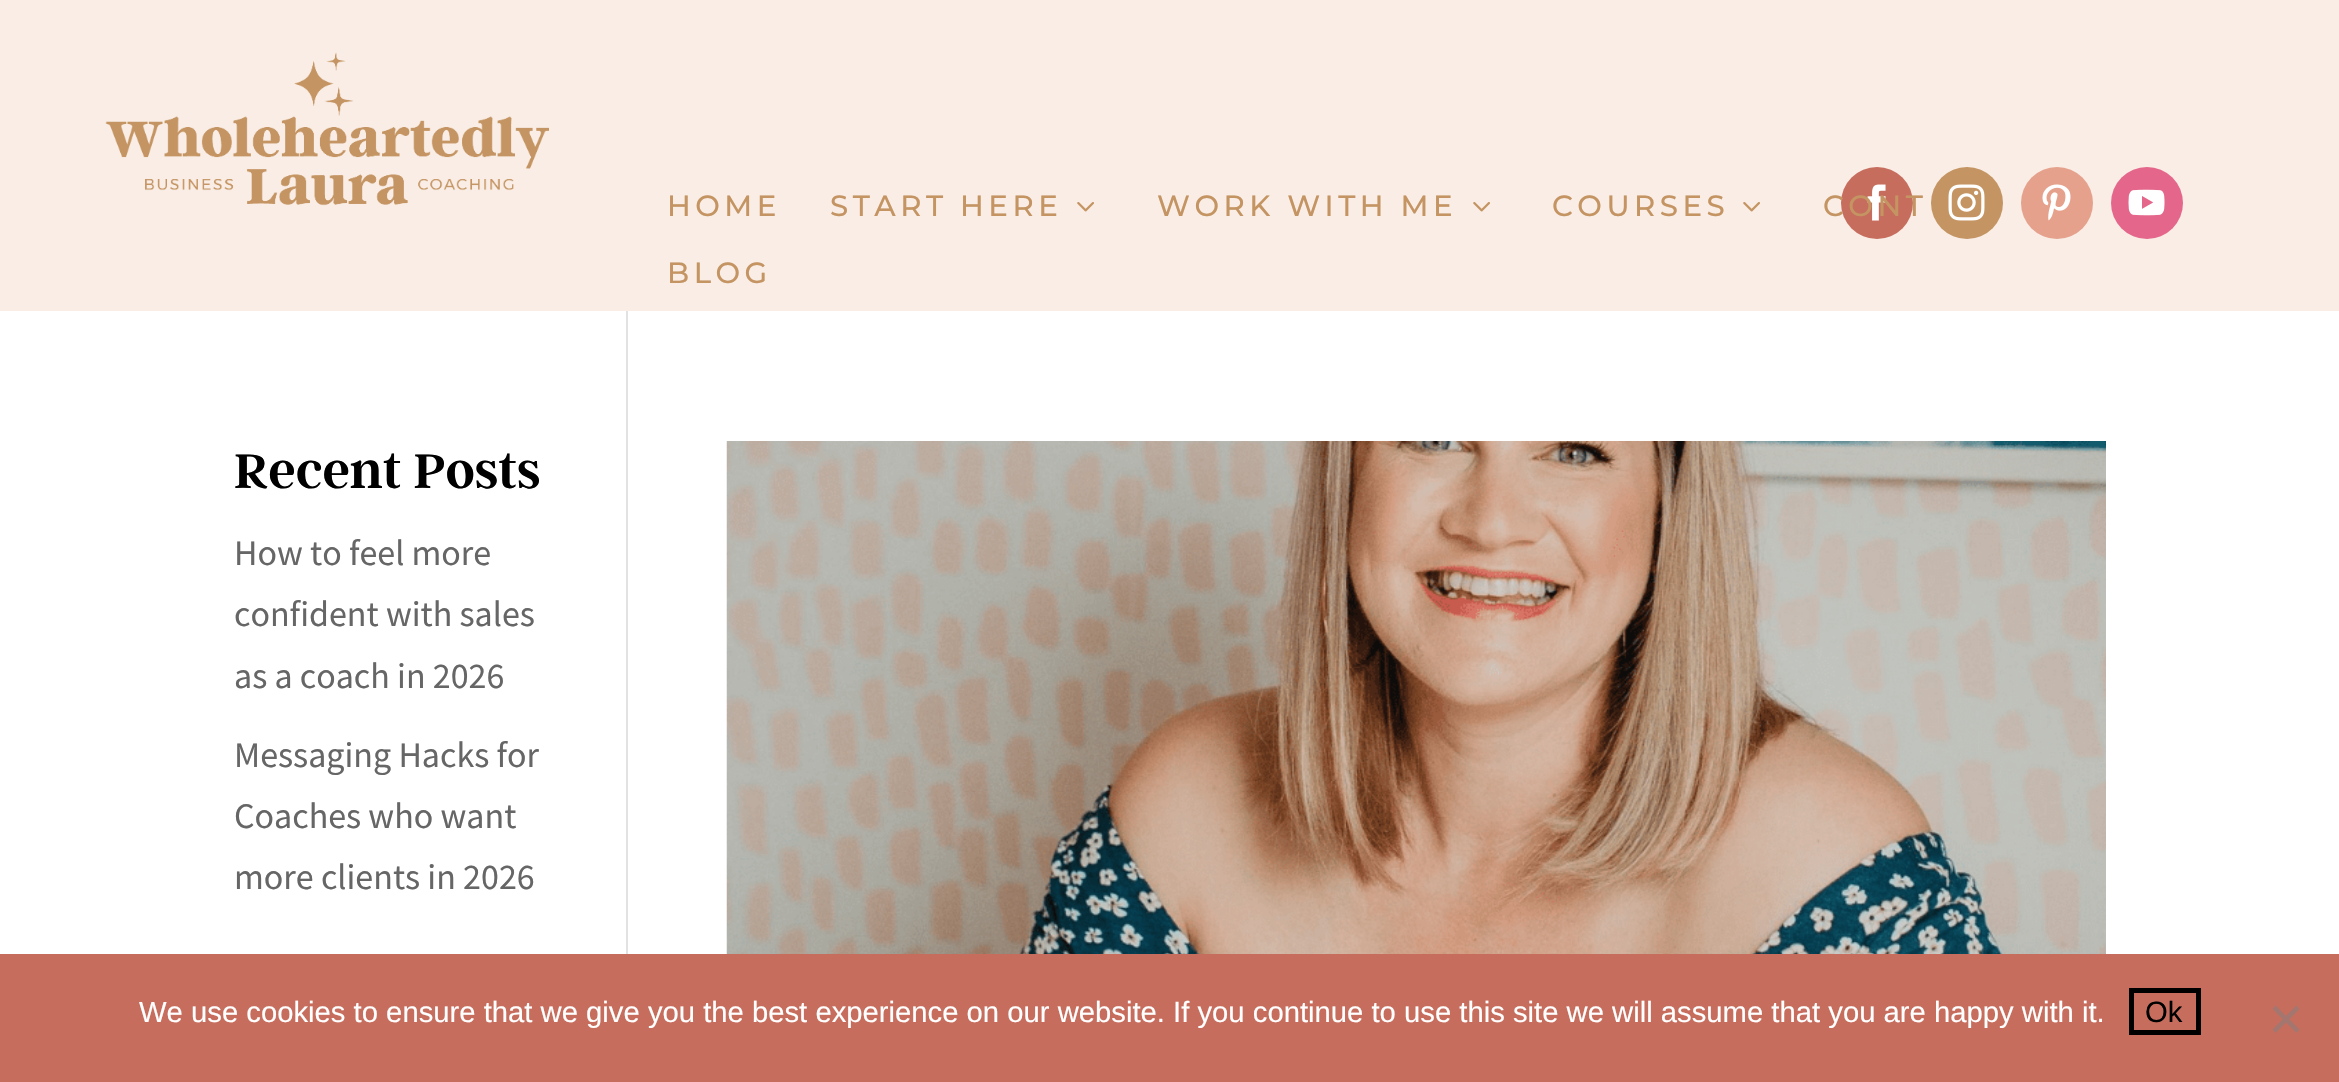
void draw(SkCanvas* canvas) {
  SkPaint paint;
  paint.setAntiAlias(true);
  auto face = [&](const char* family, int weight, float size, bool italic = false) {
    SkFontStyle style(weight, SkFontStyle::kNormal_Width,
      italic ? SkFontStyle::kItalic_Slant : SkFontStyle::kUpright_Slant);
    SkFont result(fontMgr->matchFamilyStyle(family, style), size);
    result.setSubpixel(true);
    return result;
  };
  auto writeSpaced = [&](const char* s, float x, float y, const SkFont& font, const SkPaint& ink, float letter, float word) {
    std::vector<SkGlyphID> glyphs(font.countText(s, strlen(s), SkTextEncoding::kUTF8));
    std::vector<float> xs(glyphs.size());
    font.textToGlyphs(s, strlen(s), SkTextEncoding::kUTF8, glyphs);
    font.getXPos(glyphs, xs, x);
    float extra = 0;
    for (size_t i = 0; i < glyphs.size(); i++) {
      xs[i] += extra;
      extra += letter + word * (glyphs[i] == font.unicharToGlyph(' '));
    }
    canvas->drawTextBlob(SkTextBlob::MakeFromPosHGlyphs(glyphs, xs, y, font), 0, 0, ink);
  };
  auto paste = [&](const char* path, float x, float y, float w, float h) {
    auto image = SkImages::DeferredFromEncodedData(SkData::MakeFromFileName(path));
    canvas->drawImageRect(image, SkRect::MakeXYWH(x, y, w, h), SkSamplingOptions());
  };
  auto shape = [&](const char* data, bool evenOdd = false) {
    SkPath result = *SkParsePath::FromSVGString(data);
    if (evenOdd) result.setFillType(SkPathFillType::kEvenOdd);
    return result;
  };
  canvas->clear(0xffffffff);
  paint.setColor(0xfff9ede5);
  canvas->drawRect(SkRect::MakeXYWH(0, 0, 2339, 311), paint);
  paste("img/1.png", 105, 52, 444, 154);
  paste("img/2.png", 1077, 202, 17, 10);
  paste("img/2.png", 1473, 202, 17, 10);
  paste("img/2.png", 1743, 202, 17, 10);
  paint.setColor(0xffc66d5d);
  canvas->drawCircle(1877, 203, 36, paint);
  paste("img/3.png", 1867, 184, 19, 37);
  paint.setColor(0xffc49462);
  canvas->drawCircle(1967, 203, 36, paint);
  paste("img/4.png", 1948, 184, 37, 37);
  paint.setColor(0xffe5a18c);
  canvas->drawCircle(2057, 203, 36, paint);
  paste("img/5.png", 2042, 184, 29, 37);
  paint.setColor(0xffe4668b);
  canvas->drawCircle(2147, 203, 36, paint);
  paste("img/6.png", 2128, 189, 37, 27);
  paste("img/7.png", 726, 441, 1380, 513);
  paint.setColor(0xffe2e2e2);
  canvas->drawRect(SkRect::MakeXYWH(626, 311, 2, 643), paint);
  paint.setColor(0xffc66d5d);
  canvas->drawRect(SkRect::MakeXYWH(0, 954, 2339, 128), paint);
  paint.setStroke(true);
  paint.setStrokeWidth(5);
  paint.setColor(0xff000000);
  canvas->drawRect(SkRect::MakeXYWH(2131.5f, 990.5f, 67, 42), paint);
  paint.setStroke(false);
  paint.setColor(0xffa3776f);
  canvas->drawPath(shape("M2296.5 1005.5L2299.5 1009L2275.5 1033L2272.5 1029.5Z"), paint);
  canvas->drawPath(shape("M2272.5 1009L2275.5 1005.5L2299.5 1029.5L2296.5 1033Z"), paint);
  auto f0 = face("Montserrat", 500, 29.25f);
  paint.setColor(0xffc49462);
  {
    const struct { const char* s; float x, y; } items[] = {
      {"HOME", 667, 216},
      {"START HERE", 830, 216},
      {"WORK WITH ME", 1157, 216},
      {"COURSES", 1552, 216},
      {"CONT", 1823, 216},
      {"BLOG", 667, 283},
    };
    for (auto [s, x, y] : items) {
      writeSpaced(s, x, y, f0, paint, 4.5f, 0);
    }
  }
  auto f1 = face("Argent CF", 600, 54);
  paint.setColor(0xff000000);
  canvas->drawString("Recent Posts", 234, 488, f1, paint);
  auto f2 = face("Source Sans Pro", 400, 36);
  paint.setColor(0xff666666);
  {
    const struct { const char* s; float x, y; } items[] = {
      {"How to feel more", 234, 565},
      {"confident with sales", 234, 626},
      {"as a coach in 2026", 234, 688},
      {"Messaging Hacks for", 234, 767},
      {"Coaches who want", 234, 828},
      {"more clients in 2026", 234, 889},
    };
    for (auto [s, x, y] : items) {
      canvas->drawString(s, x, y, f2, paint);
    }
  }
  auto f3 = face("Liberation Sans", 400, 29.25f);
  paint.setColor(0xffffffff);
  canvas->drawString("We use cookies to ensure that we give you the best experience on our website. If you continue to use this site we will assume that you are happy with it.", 139, 1022, f3, paint);
  paint.setColor(0xff000000);
  canvas->drawString("Ok", 2145, 1022, f3, paint);
}
